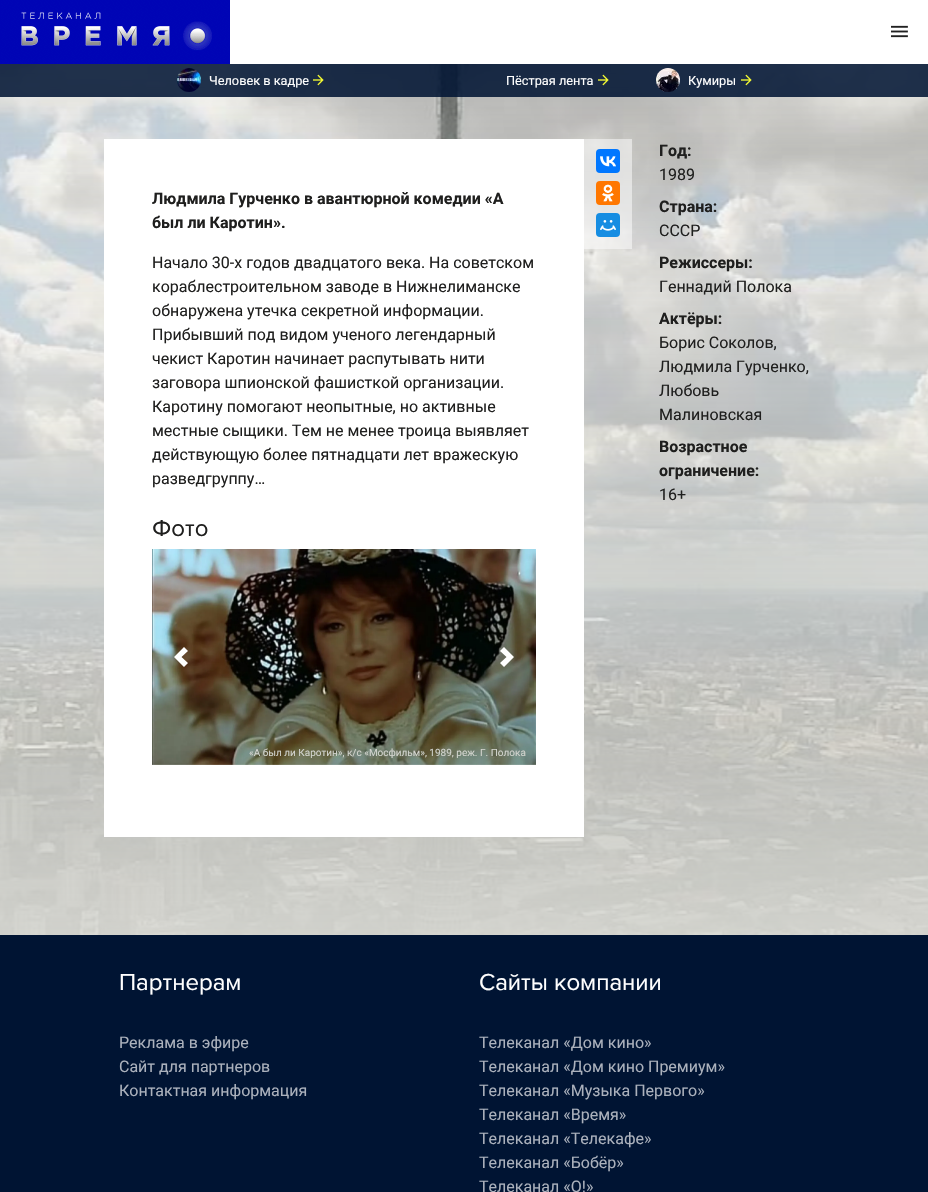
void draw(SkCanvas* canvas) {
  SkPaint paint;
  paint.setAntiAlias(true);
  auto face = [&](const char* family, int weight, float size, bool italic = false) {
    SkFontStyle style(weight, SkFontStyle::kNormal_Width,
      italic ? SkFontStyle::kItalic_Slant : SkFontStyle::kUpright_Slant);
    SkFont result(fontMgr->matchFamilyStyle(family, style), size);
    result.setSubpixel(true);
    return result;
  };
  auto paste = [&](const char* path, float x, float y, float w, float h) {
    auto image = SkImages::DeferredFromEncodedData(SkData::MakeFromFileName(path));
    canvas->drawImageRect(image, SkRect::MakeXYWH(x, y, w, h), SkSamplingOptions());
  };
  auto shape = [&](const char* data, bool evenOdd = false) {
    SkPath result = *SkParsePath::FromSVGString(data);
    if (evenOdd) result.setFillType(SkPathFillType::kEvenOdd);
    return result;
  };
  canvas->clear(0xffffffff);
  paste("img/1.png", 0, 64, 928, 871);
  paste("img/2.png", 0, 0, 230, 64);
  paste("img/3.png", 891, 25, 17, 13);
  paint.setColor(0xde001433);
  canvas->drawRect(SkRect::MakeXYWH(0, 64, 928, 33), paint);
  paste("img/4.png", 177, 68, 24, 24);
  paste("img/5.png", 313, 74, 11, 12);
  paste("img/6.png", 598, 74, 11, 12);
  paste("img/7.png", 656, 68, 24, 24);
  paste("img/8.png", 741, 74, 11, 12);
  paint.setColor(0xffffffff);
  canvas->drawRect(SkRect::MakeXYWH(104, 139, 480, 698), paint);
  paste("img/9.png", 152, 549, 384, 216);
  canvas->drawPath(shape("M184 647L174 657L184 667L188 663L181.5 657L188 651Z"), paint);
  canvas->drawPath(shape("M504 647L500 651L506.5 657L500 663L504 667L514 657Z"), paint);
  paint.setColor(0x80ffffff);
  canvas->drawRect(SkRect::MakeXYWH(584, 139, 48, 110), paint);
  paint.setColor(0xff0077ff);
  canvas->drawRoundRect(SkRect::MakeXYWH(596, 149, 24, 24), 4, 4, paint);
  paste("img/10.png", 600, 156, 16, 11);
  paint.setColor(0xffff7700);
  canvas->drawRoundRect(SkRect::MakeXYWH(596, 181, 24, 24), 4, 4, paint);
  paste("img/11.png", 602, 184, 12, 18);
  paint.setColor(0xff168de2);
  canvas->drawRoundRect(SkRect::MakeXYWH(596, 213, 24, 24), 4, 4, paint);
  paste("img/12.png", 600, 220, 16, 11);
  paint.setColor(0xff001433);
  canvas->drawRect(SkRect::MakeXYWH(0, 935, 928, 257), paint);
  auto f0 = face("Roboto", 400, 12.75f);
  paint.setColor(0xffffffff);
  {
    const struct { const char* s; float x, y; } items[] = {
      {"Человек в кадре", 209, 85},
      {"Пёстрая лента", 506, 85},
      {"Кумиры", 688, 85},
    };
    for (auto [s, x, y] : items) {
      canvas->drawString(s, x, y, f0, paint);
    }
  }
  auto f1 = face("Roboto", 700, 16);
  paint.setColor(0xff1f1f1e);
  canvas->drawString("Людмила Гурченко в авантюрной комедии «А", 152, 204, f1, paint);
  canvas->drawString("был ли Каротин».", 152, 228, f1, paint);
  auto f2 = face("Roboto", 400, 16);
  {
    const struct { const char* s; float x, y; } items[] = {
      {"Начало 30-х годов двадцатого века. На советском", 152, 268},
      {"кораблестроительном заводе в Нижнелиманске", 152, 292},
      {"обнаружена утечка секретной информации.", 152, 316},
      {"Прибывший под видом ученого легендарный", 152, 340},
      {"чекист Каротин начинает распутывать нити", 152, 364},
      {"заговора шпионской фашисткой организации.", 152, 388},
      {"Каротину помогают неопытные, но активные", 152, 412},
      {"местные сыщики. Тем не менее троица выявляет", 152, 436},
      {"действующую более пятнадцати лет вражескую", 152, 460},
      {"разведгруппу…", 152, 484},
    };
    for (auto [s, x, y] : items) {
      canvas->drawString(s, x, y, f2, paint);
    }
  }
  auto f3 = face("Proxima Nova", 400, 24);
  canvas->drawString("Фото", 152, 536, f3, paint);
  auto f4 = face("Roboto", 400, 10);
  paint.setColor(0xffd2d4ce);
  canvas->drawString("«А был ли Каротин», к/с «Мосфильм», 1989, реж. Г. Полока", 249, 756, f4, paint);
  paint.setColor(0xff1f1f1e);
  canvas->drawString("Год:", 659, 156, f1, paint);
  canvas->drawString("1989", 659, 180, f2, paint);
  canvas->drawString("Страна:", 659, 212, f1, paint);
  canvas->drawString("СССР", 659, 236, f2, paint);
  canvas->drawString("Режиссеры:", 659, 268, f1, paint);
  canvas->drawString("Геннадий Полока", 659, 292, f2, paint);
  canvas->drawString("Актёры:", 659, 324, f1, paint);
  {
    const struct { const char* s; float x, y; } items[] = {
      {"Борис Соколов,", 659, 348},
      {"Людмила Гурченко,", 659, 372},
      {"Любовь", 659, 396},
      {"Малиновская", 659, 420},
    };
    for (auto [s, x, y] : items) {
      canvas->drawString(s, x, y, f2, paint);
    }
  }
  canvas->drawString("Возрастное", 659, 452, f1, paint);
  canvas->drawString("ограничение:", 659, 476, f1, paint);
  canvas->drawString("16+", 659, 500, f2, paint);
  paint.setColor(0xffffffff);
  canvas->drawString("Партнерам", 119, 990, f3, paint);
  paint.setColor(0xffabb1bc);
  {
    const struct { const char* s; float x, y; } items[] = {
      {"Реклама в эфире", 119, 1048},
      {"Сайт для партнеров", 119, 1072},
      {"Контактная информация", 119, 1096},
    };
    for (auto [s, x, y] : items) {
      canvas->drawString(s, x, y, f2, paint);
    }
  }
  paint.setColor(0xffffffff);
  canvas->drawString("Сайты компании", 479, 990, f3, paint);
  paint.setColor(0xffabb1bc);
  {
    const struct { const char* s; float x, y; } items[] = {
      {"Телеканал «Дом кино»", 479, 1048},
      {"Телеканал «Дом кино Премиум»", 479, 1072},
      {"Телеканал «Музыка Первого»", 479, 1096},
      {"Телеканал «Время»", 479, 1120},
      {"Телеканал «Телекафе»", 479, 1144},
      {"Телеканал «Бобёр»", 479, 1168},
      {"Телеканал «О!»", 479, 1192},
    };
    for (auto [s, x, y] : items) {
      canvas->drawString(s, x, y, f2, paint);
    }
  }
}
